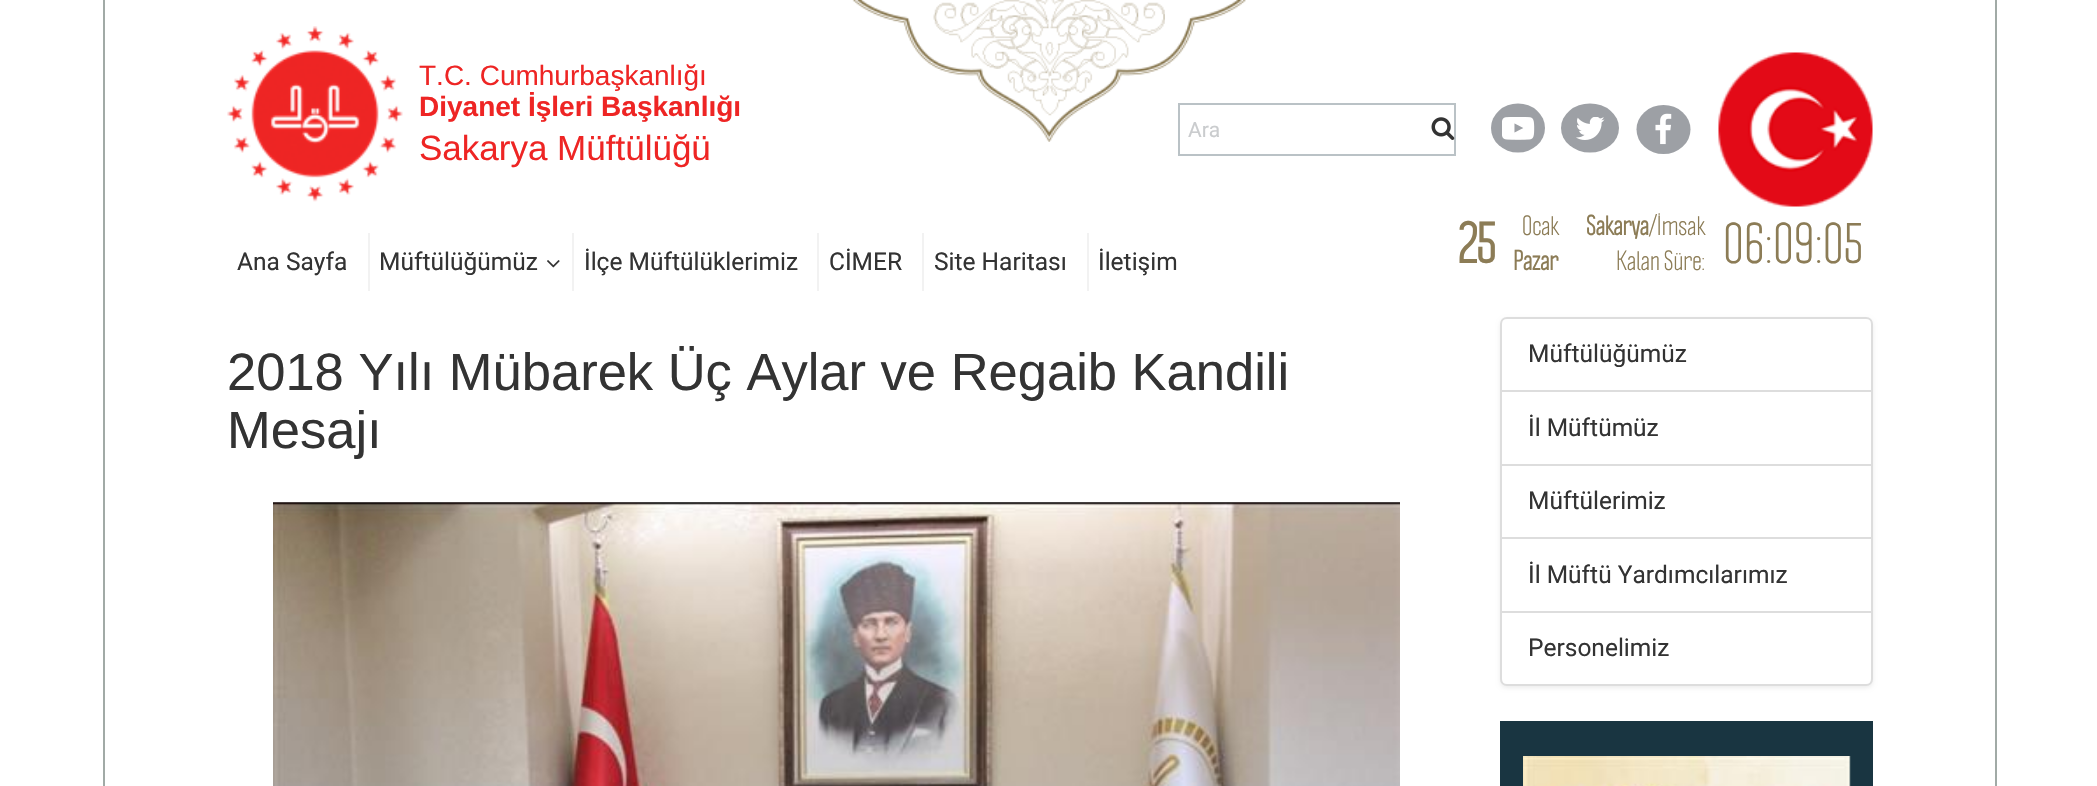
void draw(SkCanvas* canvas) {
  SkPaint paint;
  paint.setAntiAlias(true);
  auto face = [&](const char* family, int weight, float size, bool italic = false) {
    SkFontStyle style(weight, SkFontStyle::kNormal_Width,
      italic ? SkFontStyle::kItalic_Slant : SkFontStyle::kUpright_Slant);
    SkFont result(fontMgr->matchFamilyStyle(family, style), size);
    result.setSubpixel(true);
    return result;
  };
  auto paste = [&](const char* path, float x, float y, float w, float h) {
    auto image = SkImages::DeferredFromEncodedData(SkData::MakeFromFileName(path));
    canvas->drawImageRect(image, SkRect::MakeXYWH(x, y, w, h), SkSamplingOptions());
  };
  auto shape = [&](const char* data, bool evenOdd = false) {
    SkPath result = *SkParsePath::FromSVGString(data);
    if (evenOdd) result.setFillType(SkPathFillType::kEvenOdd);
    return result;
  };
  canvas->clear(0xffffffff);
  paint.setColor(0xffa1aaa6);
  canvas->drawRect(SkRect::MakeXYWH(1995, 0, 2, 786), paint);
  canvas->drawRect(SkRect::MakeXYWH(103, 0, 2, 786), paint);
  paste("img/1.png", 852, 0, 394, 142);
  paste("img/2.png", 227, 26, 176, 176);
  paint.setStroke(true);
  paint.setStrokeWidth(2);
  paint.setColor(0xffbac2c6);
  canvas->drawRect(SkRect::MakeXYWH(1179, 104, 276, 51), paint);
  paste("img/3.png", 1431, 117, 24, 23);
  paint.setStroke(false);
  paint.setColor(0xff9da0a5);
  canvas->drawOval(SkRect::MakeXYWH(1491, 103.5f, 54, 49), paint);
  paste("img/4.png", 1502, 117, 33, 23);
  canvas->drawOval(SkRect::MakeXYWH(1561, 103.5f, 58, 49), paint);
  paste("img/5.png", 1576, 117, 29, 23);
  canvas->drawOval(SkRect::MakeXYWH(1636.5f, 105, 54, 49), paint);
  paste("img/6.png", 1655, 113, 17, 32);
  paste("img/7.png", 1718, 52, 155, 155);
  paint.setColor(0xfff2f2f2);
  canvas->drawRect(SkRect::MakeXYWH(368, 233, 2, 58), paint);
  canvas->drawRect(SkRect::MakeXYWH(572, 233, 2, 58), paint);
  paste("img/8.png", 547, 260, 13, 8);
  {
    const struct { float x, y, w, h; SkColor color; } items[] = {
      {817, 233, 2, 58, 0xfff2f2f2},
      {922, 233, 2, 58, 0xfff2f2f2},
      {1087, 233, 2, 58, 0xfff2f2f2},
    };
    for (auto [x, y, w, h, color] : items) {
      paint.setColor(color);
      canvas->drawRect(SkRect::MakeXYWH(x, y, w, h), paint);
    }
  }
  paste("img/9.png", 273, 502, 1127, 284);
  paint.setColor(0x12000000);
  paint.setMaskFilter(SkMaskFilter::MakeBlur(kNormal_SkBlurStyle, 2));
  canvas->drawRoundRect(SkRect::MakeXYWH(1500, 319, 373, 369), 7, 7, paint);
  paint.setMaskFilter(nullptr);
  paint.setColor(0xffffffff);
  canvas->drawPath(shape("M1507 318H1866C1869.5 318 1872 320.5 1872 324V391H1501V324C1501 320.5 1503.5 318 1507 318Z"), paint);
  paint.setStroke(true);
  paint.setColor(0xffdddddd);
  canvas->drawPath(shape("M1507 318H1866C1869.5 318 1872 320.5 1872 324V391H1501V324C1501 320.5 1503.5 318 1507 318Z"), paint);
  paint.setStroke(false);
  paint.setColor(0xffffffff);
  canvas->drawRect(SkRect::MakeXYWH(1501, 391, 371, 74), paint);
  paint.setStroke(true);
  paint.setColor(0xffdddddd);
  canvas->drawRect(SkRect::MakeXYWH(1501, 391, 371, 74), paint);
  paint.setStroke(false);
  paint.setColor(0xffffffff);
  canvas->drawRect(SkRect::MakeXYWH(1501, 465, 371, 73), paint);
  paint.setStroke(true);
  paint.setColor(0xffdddddd);
  canvas->drawRect(SkRect::MakeXYWH(1501, 465, 371, 73), paint);
  paint.setStroke(false);
  paint.setColor(0xffffffff);
  canvas->drawRect(SkRect::MakeXYWH(1501, 538, 371, 74), paint);
  paint.setStroke(true);
  paint.setColor(0xffdddddd);
  canvas->drawRect(SkRect::MakeXYWH(1501, 538, 371, 74), paint);
  paint.setStroke(false);
  paint.setColor(0xffffffff);
  canvas->drawPath(shape("M1501 612H1872V679C1872 682.5 1869.5 685 1866 685H1507C1503.5 685 1501 682.5 1501 679Z"), paint);
  paint.setStroke(true);
  paint.setColor(0xffdddddd);
  canvas->drawPath(shape("M1501 612H1872V679C1872 682.5 1869.5 685 1866 685H1507C1503.5 685 1501 682.5 1501 679Z"), paint);
  paint.setStroke(false);
  paint.setColor(0xff193541);
  canvas->drawRect(SkRect::MakeXYWH(1500, 721, 373, 65), paint);
  paste("img/10.png", 1523, 756, 328, 30);
  auto f0 = face("Liberation Sans", 400, 28);
  paint.setColor(0xffee2524);
  canvas->drawString("T.C. Cumhurbaşkanlığı", 419, 85, f0, paint);
  auto f1 = face("Liberation Sans", 700, 28);
  canvas->drawString("Diyanet İşleri Başkanlığı", 419, 116, f1, paint);
  auto f2 = face("Liberation Sans", 400, 35);
  canvas->drawString("Sakarya Müftülüğü", 419, 160, f2, paint);
  auto f3 = face("Roboto", 400, 21);
  paint.setColor(0xffcaccce);
  canvas->drawString("Ara", 1188, 137, f3, paint);
  auto f4 = face("Roboto", 400, 24.5f);
  paint.setColor(0xff333333);
  {
    const struct { const char* s; float x, y; } items[] = {
      {"Ana Sayfa", 237, 270},
      {"Müftülüğümüz", 379, 270},
      {"İlçe Müftülüklerimiz", 584, 270},
      {"CİMER", 829, 270},
      {"Site Haritası", 934, 270},
      {"İletişim", 1098, 270},
    };
    for (auto [s, x, y] : items) {
      canvas->drawString(s, x, y, f4, paint);
    }
  }
  auto f5 = face("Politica", 700, 52.5f);
  paint.setColor(0xff8c7c56);
  canvas->drawString("25", 1458, 263, f5, paint);
  auto f6 = face("Politica", 400, 24.5f);
  canvas->drawString("Ocak", 1522, 235, f6, paint);
  auto f7 = face("Politica", 700, 24.5f);
  canvas->drawString("Pazar", 1513, 270, f7, paint);
  canvas->drawString("Sakarya", 1586, 235, f7, paint);
  canvas->drawString("/İmsak", 1649, 235, f6, paint);
  canvas->drawString("Kalan Süre:", 1616, 270, f6, paint);
  auto f8 = face("Politica", 400, 52.5f);
  canvas->drawString("06:09:05", 1723, 263, f8, paint);
  auto f9 = face("Liberation Sans", 400, 52.5f);
  paint.setColor(0xff333333);
  canvas->drawString("2018 Yılı Mübarek Üç Aylar ve Regaib Kandili", 227, 390, f9, paint);
  canvas->drawString("Mesajı", 227, 448, f9, paint);
  {
    const struct { const char* s; float x, y; } items[] = {
      {"Müftülüğümüz", 1528, 362},
      {"İl Müftümüz", 1528, 436},
      {"Müftülerimiz", 1528, 509},
      {"İl Müftü Yardımcılarımız", 1528, 583},
      {"Personelimiz", 1528, 656},
    };
    for (auto [s, x, y] : items) {
      canvas->drawString(s, x, y, f4, paint);
    }
  }
}
